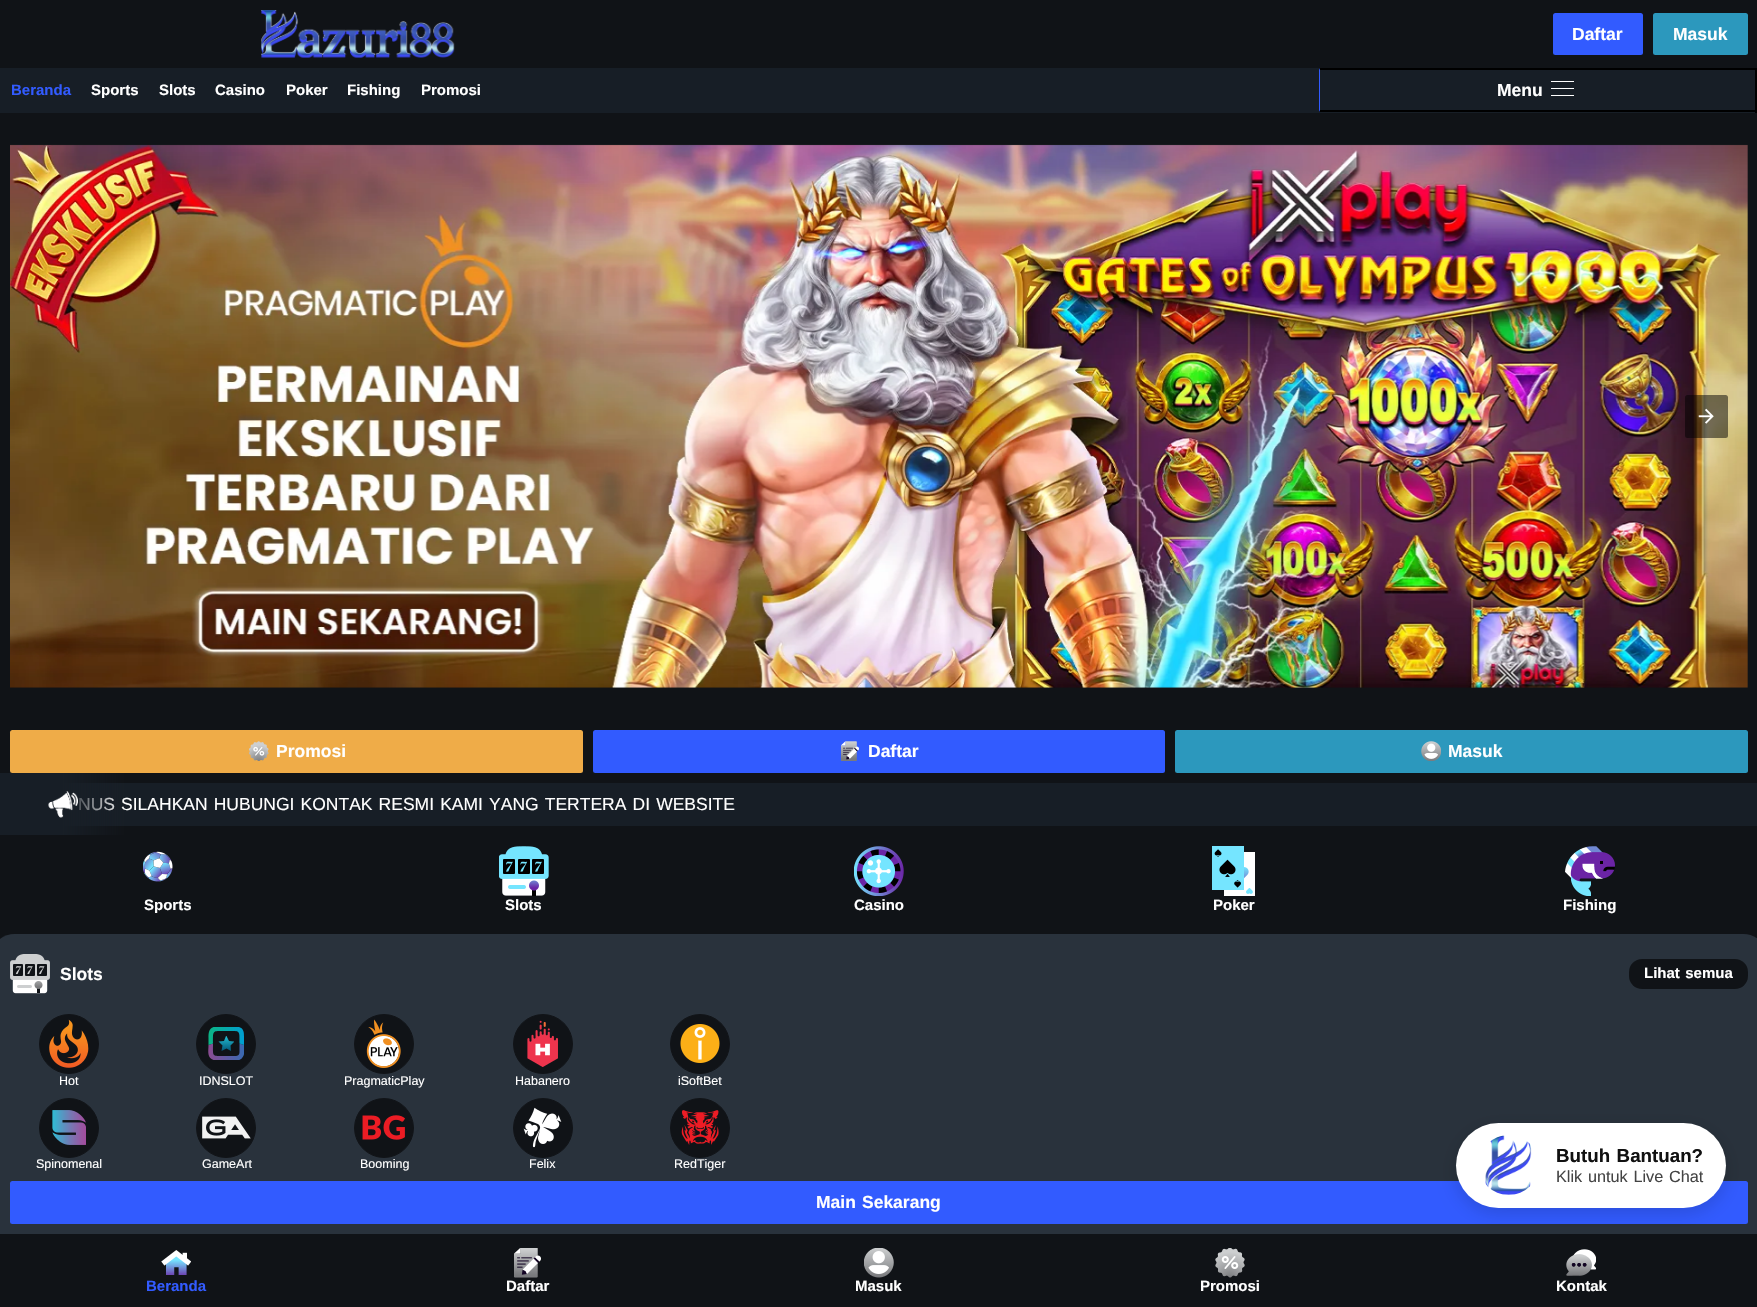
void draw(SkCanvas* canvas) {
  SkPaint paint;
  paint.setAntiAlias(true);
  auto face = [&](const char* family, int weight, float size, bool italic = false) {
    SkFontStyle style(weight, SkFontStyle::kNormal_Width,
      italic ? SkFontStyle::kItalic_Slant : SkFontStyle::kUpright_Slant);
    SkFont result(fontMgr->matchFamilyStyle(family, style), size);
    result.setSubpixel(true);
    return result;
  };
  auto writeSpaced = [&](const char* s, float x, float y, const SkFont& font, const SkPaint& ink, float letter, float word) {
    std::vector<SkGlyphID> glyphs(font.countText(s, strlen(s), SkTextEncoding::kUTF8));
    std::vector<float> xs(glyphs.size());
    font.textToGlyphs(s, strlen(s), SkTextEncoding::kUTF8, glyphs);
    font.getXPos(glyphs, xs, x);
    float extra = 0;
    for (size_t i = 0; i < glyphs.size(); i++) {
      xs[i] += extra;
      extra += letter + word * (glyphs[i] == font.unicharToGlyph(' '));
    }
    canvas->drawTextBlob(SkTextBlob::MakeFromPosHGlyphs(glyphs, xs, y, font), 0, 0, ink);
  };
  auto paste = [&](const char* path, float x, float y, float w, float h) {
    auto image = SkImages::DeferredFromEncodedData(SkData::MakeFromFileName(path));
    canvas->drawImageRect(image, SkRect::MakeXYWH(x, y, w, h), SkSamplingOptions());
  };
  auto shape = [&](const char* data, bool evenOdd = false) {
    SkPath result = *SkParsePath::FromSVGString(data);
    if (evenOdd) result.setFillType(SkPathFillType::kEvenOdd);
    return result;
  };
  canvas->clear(0xff101317);
  paste("img/1.png", 261, 10, 194, 48);
  paint.setColor(0xff325bff);
  canvas->drawRoundRect(SkRect::MakeXYWH(1553, 13, 90, 42), 2.5f, 2.5f, paint);
  paint.setColor(0xff2c98bd);
  canvas->drawRoundRect(SkRect::MakeXYWH(1653, 13, 95, 42), 2.5f, 2.5f, paint);
  paint.setColor(0xff171e26);
  canvas->drawRect(SkRect::MakeXYWH(0, 68, 1755, 45), paint);
  paint.setColor(0xff000000);
  canvas->drawPath(shape("M1319 68H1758L1755 70H1320Z"), paint);
  canvas->drawRect(SkRect::MakeXYWH(1755, 68, 2, 45), paint);
  canvas->drawPath(shape("M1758 112H1319L1320 110H1755Z"), paint);
  paint.setColor(0xff325bff);
  canvas->drawPath(shape("M1319 112V68L1320 70V110Z"), paint);
  {
    const struct { float x, y, w, h; SkColor color; } items[] = {
      {1551, 81, 23, 1, 0xffffffff},
      {1551, 88, 23, 1, 0xffffffff},
      {1551, 95, 23, 1, 0xffffffff},
    };
    for (auto [x, y, w, h, color] : items) {
      paint.setColor(color);
      canvas->drawRect(SkRect::MakeXYWH(x, y, w, h), paint);
    }
  }
  paste("img/2.png", 10, 144, 1738, 544);
  paint.setColor(0x80000000);
  canvas->drawRoundRect(SkRect::MakeXYWH(1685, 395, 43, 43), 2.5f, 2.5f, paint);
  paste("img/3.png", 1698, 408, 16, 16);
  paint.setColor(0xffefac48);
  canvas->drawRoundRect(SkRect::MakeXYWH(10, 730, 573, 43), 2.5f, 2.5f, paint);
  paste("img/4.png", 249, 741, 20, 20);
  paint.setColor(0xff325bff);
  canvas->drawRoundRect(SkRect::MakeXYWH(593, 730, 572, 43), 2.5f, 2.5f, paint);
  paste("img/5.png", 841, 741, 18, 20);
  paint.setColor(0xff2c98bd);
  canvas->drawRoundRect(SkRect::MakeXYWH(1175, 730, 573, 43), 2.5f, 2.5f, paint);
  paste("img/6.png", 1421, 741, 20, 20);
  paint.setColor(0xff171e26);
  canvas->drawRect(SkRect::MakeXYWH(63, 783, 1694, 43), paint);
  paste("img/8.png", 143, 851, 30, 31);
  paste("img/9.png", 499, 846, 50, 50);
  paste("img/10.png", 854, 846, 50, 50);
  paste("img/11.png", 1212, 846, 43, 50);
  paste("img/12.png", 1565, 846, 50, 50);
  paint.setColor(0xff29323c);
  canvas->drawPath(shape("M15 934H1743C1757 934 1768 945 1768 959V1244H-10V959C-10 945 1 934 15 934Z"), paint);
  paste("img/13.png", 10, 954, 40, 40);
  paint.setColor(0xff101317);
  canvas->drawRoundRect(SkRect::MakeXYWH(1629, 959, 119, 30), 13, 13, paint);
  canvas->drawCircle(69, 1044, 29.5f, paint);
  paint.setStroke(true);
  paint.setStrokeWidth(1);
  canvas->drawCircle(69, 1044, 29.5f, paint);
  paste("img/14.png", 49, 1019, 40, 49);
  paint.setStroke(false);
  canvas->drawCircle(226, 1044, 29.5f, paint);
  paint.setStroke(true);
  canvas->drawCircle(226, 1044, 29.5f, paint);
  paint.setStroke(false);
  {
    const SkColor colors[] = {0xff23bfd4, 0xff025778};
    const float stops[] = {0, 1};
    const SkPoint ends[] = {{226, 1036}, {226, 1051}};
    paint.setShader(SkGradientShader::MakeLinear(ends, colors, stops, 2, SkTileMode::kClamp));
    paint.setAlpha(255);
  }
  canvas->drawPath(shape("M224 1041L226 1036H226.5L229 1041L234 1041.5V1042L230.5 1045.5L231 1051L226.5 1048.5L221.5 1051L222.5 1045.5L218.5 1041.5Z"), paint);
  {
    const SkColor colors[] = {0xff894c92, 0xff3869b1};
    const float stops[] = {0, 1};
    const SkPoint ends[] = {{209, 1051}, {244, 1051}};
    paint.setShader(SkGradientShader::MakeLinear(ends, colors, stops, 2, SkTileMode::kClamp));
    paint.setAlpha(255);
  }
  canvas->drawPath(shape("M239.5 1052C239.5 1056.5 235.5 1056 232.5 1056H226.5C211.5 1056 213 1057.5 213 1043.5L208.5 1045C208.5 1050 207 1056 211.5 1059L213.5 1060H239C241 1060 244 1056 244 1054V1045L239.5 1043.5Z"), paint);
  {
    const SkColor colors[] = {0xff0cb586, 0xff009ed1};
    const float stops[] = {0, 1};
    const SkPoint ends[] = {{209, 1035}, {244, 1035}};
    paint.setShader(SkGradientShader::MakeLinear(ends, colors, stops, 2, SkTileMode::kClamp));
    paint.setAlpha(255);
  }
  canvas->drawPath(shape("M239 1027H213.5L211.5 1028C208.5 1030.5 208.5 1034 208.5 1038V1045L213 1043.5C213 1029.5 212 1031 226.5 1031C240.5 1031 239.5 1029.5 239.5 1043.5L244 1045V1037C244 1032.5 244 1028.5 239 1027Z"), paint);
  paint.setShader(nullptr);
  paint.setColor(0xff101317);
  canvas->drawCircle(384, 1044, 29.5f, paint);
  paint.setStroke(true);
  canvas->drawCircle(384, 1044, 29.5f, paint);
  paste("img/15.png", 366, 1019, 35, 49);
  paint.setStroke(false);
  canvas->drawCircle(543, 1044, 29.5f, paint);
  paint.setStroke(true);
  canvas->drawCircle(543, 1044, 29.5f, paint);
  paste("img/16.png", 527, 1020, 31, 47);
  paint.setStroke(false);
  canvas->drawCircle(700, 1044, 29.5f, paint);
  paint.setStroke(true);
  canvas->drawCircle(700, 1044, 29.5f, paint);
  paste("img/17.png", 680, 1024, 40, 39);
  paint.setStroke(false);
  canvas->drawCircle(69, 1128, 29.5f, paint);
  paint.setStroke(true);
  canvas->drawCircle(69, 1128, 29.5f, paint);
  paste("img/18.png", 52, 1110, 34, 35);
  paint.setStroke(false);
  canvas->drawCircle(226, 1128, 29.5f, paint);
  paint.setStroke(true);
  canvas->drawCircle(226, 1128, 29.5f, paint);
  paste("img/19.png", 202, 1116, 49, 23);
  paint.setStroke(false);
  canvas->drawCircle(384, 1128, 29.5f, paint);
  paint.setStroke(true);
  canvas->drawCircle(384, 1128, 29.5f, paint);
  paste("img/20.png", 362, 1115, 43, 25);
  paint.setStroke(false);
  canvas->drawCircle(543, 1128, 29.5f, paint);
  paint.setStroke(true);
  canvas->drawCircle(543, 1128, 29.5f, paint);
  paste("img/21.png", 523, 1107, 39, 41);
  paint.setStroke(false);
  canvas->drawCircle(700, 1128, 29.5f, paint);
  paint.setStroke(true);
  canvas->drawCircle(700, 1128, 29.5f, paint);
  paste("img/22.png", 681, 1110, 38, 35);
  paint.setStroke(false);
  paint.setColor(0xff325bff);
  canvas->drawRoundRect(SkRect::MakeXYWH(10, 1181, 1738, 43), 2.5f, 2.5f, paint);
  paint.setColor(0xff101317);
  canvas->drawRect(SkRect::MakeXYWH(0, 1234, 1757, 10), paint);
  paint.setColor(0x26000000);
  paint.setMaskFilter(SkMaskFilter::MakeBlur(kNormal_SkBlurStyle, 9));
  canvas->drawRoundRect(SkRect::MakeXYWH(1456, 1128, 270, 85), 42.5f, 42.5f, paint);
  paint.setMaskFilter(nullptr);
  paint.setColor(0xffffffff);
  canvas->drawRoundRect(SkRect::MakeXYWH(1456, 1123, 270, 85), 42.5f, 42.5f, paint);
  paste("img/23.png", 1485, 1135, 47, 60);
  paste("img/24.png", 161, 1250, 30, 25);
  paste("img/25.png", 514, 1248, 27, 30);
  paste("img/26.png", 864, 1248, 30, 30);
  paste("img/27.png", 1215, 1248, 30, 30);
  paste("img/28.png", 1566, 1249, 30, 27);
  auto f0 = face("Liberation Sans", 700, 17.5f);
  canvas->drawString("Daftar", 1572, 40, f0, paint);
  canvas->drawString("Masuk", 1673, 40, f0, paint);
  auto f1 = face("Liberation Sans", 700, 15);
  paint.setColor(0xff325bff);
  canvas->drawString("Beranda", 11, 95, f1, paint);
  paint.setColor(0xffffffff);
  {
    const struct { const char* s; float x, y; } items[] = {
      {"Sports", 91, 95},
      {"Slots", 159, 95},
      {"Casino", 215, 95},
      {"Poker", 286, 95},
      {"Fishing", 347, 95},
      {"Promosi", 421, 95},
    };
    for (auto [s, x, y] : items) {
      canvas->drawString(s, x, y, f1, paint);
    }
  }
  {
    const struct { const char* s; float x, y; } items[] = {
      {"Menu", 1497, 96},
      {"Promosi", 276, 757},
      {"Daftar", 868, 757},
      {"Masuk", 1448, 757},
    };
    for (auto [s, x, y] : items) {
      canvas->drawString(s, x, y, f0, paint);
    }
  }
  auto f2 = face("Liberation Sans", 400, 17.5f);
  writeSpaced("NUS SILAHKAN HUBUNGI KONTAK RESMI KAMI YANG TERTERA DI WEBSITE", 78, 810, f2, paint, 0, 1.25f);
  {
    const SkColor colors[] = {0xff171e26, 0xff171e26, 0x00171e26};
    const float stops[] = {0, 0.5f, 1};
    const SkPoint ends[] = {{0, 804}, {125, 804}};
    paint.setShader(SkGradientShader::MakeLinear(ends, colors, stops, 3, SkTileMode::kClamp));
    paint.setAlpha(255);
  }
  canvas->drawRect(SkRect::MakeXYWH(0, 773, 124, 62), paint);
  paste("img/7.png", 48, 791, 30, 27);
  paint.setShader(nullptr);
  paint.setColor(0xffffffff);
  {
    const struct { const char* s; float x, y; } items[] = {
      {"Sports", 144, 910},
      {"Slots", 505, 910},
      {"Casino", 854, 910},
      {"Poker", 1213, 910},
      {"Fishing", 1563, 910},
    };
    for (auto [s, x, y] : items) {
      canvas->drawString(s, x, y, f1, paint);
    }
  }
  canvas->drawString("Slots", 60, 980, f0, paint);
  writeSpaced("Lihat semua", 1644, 978, f1, paint, 0, 1.25f);
  auto f3 = face("Liberation Sans", 400, 12.5f);
  {
    const struct { const char* s; float x, y; } items[] = {
      {"Hot", 59, 1085},
      {"IDNSLOT", 199, 1085},
      {"PragmaticPlay", 344, 1085},
      {"Habanero", 515, 1085},
      {"iSoftBet", 678, 1085},
      {"Spinomenal", 36, 1168},
      {"GameArt", 202, 1168},
      {"Booming", 360, 1168},
      {"Felix", 529, 1168},
      {"RedTiger", 674, 1168},
    };
    for (auto [s, x, y] : items) {
      canvas->drawString(s, x, y, f3, paint);
    }
  }
  writeSpaced("Main Sekarang", 816, 1208, f0, paint, 0, 1.25f);
  auto f4 = face("Liberation Sans", 700, 18.75f);
  paint.setColor(0xff111111);
  writeSpaced("Butuh Bantuan?", 1556, 1162, f4, paint, 0, 1.25f);
  auto f5 = face("Liberation Sans", 400, 16.25f);
  paint.setColor(0xff444444);
  writeSpaced("Klik untuk Live Chat", 1556, 1182, f5, paint, 0, 1.25f);
  paint.setColor(0xff325bff);
  canvas->drawString("Beranda", 146, 1291, f1, paint);
  paint.setColor(0xffffffff);
  {
    const struct { const char* s; float x, y; } items[] = {
      {"Daftar", 506, 1291},
      {"Masuk", 855, 1291},
      {"Promosi", 1200, 1291},
      {"Kontak", 1556, 1291},
    };
    for (auto [s, x, y] : items) {
      canvas->drawString(s, x, y, f1, paint);
    }
  }
}
